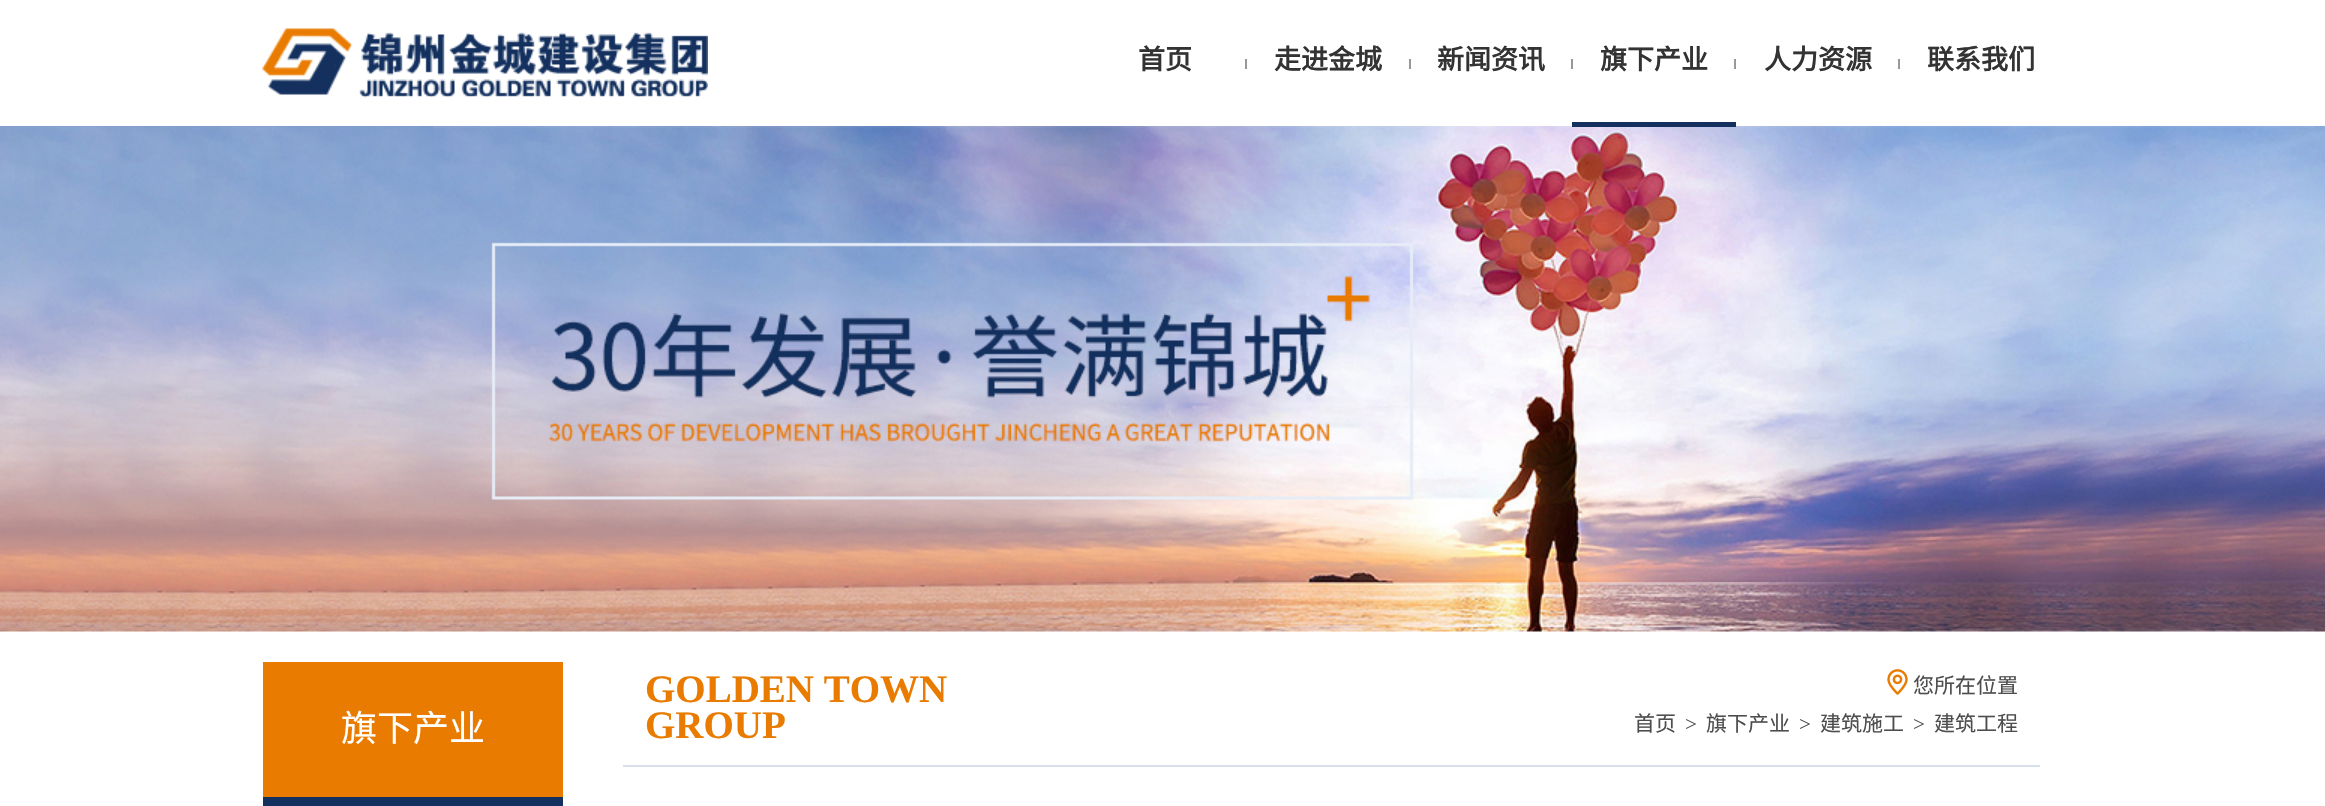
void draw(SkCanvas* canvas) {
  SkPaint paint;
  paint.setAntiAlias(true);
  auto face = [&](const char* family, int weight, float size, bool italic = false) {
    SkFontStyle style(weight, SkFontStyle::kNormal_Width,
      italic ? SkFontStyle::kItalic_Slant : SkFontStyle::kUpright_Slant);
    SkFont result(fontMgr->matchFamilyStyle(family, style), size);
    result.setSubpixel(true);
    return result;
  };
  auto paste = [&](const char* path, float x, float y, float w, float h) {
    auto image = SkImages::DeferredFromEncodedData(SkData::MakeFromFileName(path));
    canvas->drawImageRect(image, SkRect::MakeXYWH(x, y, w, h), SkSamplingOptions());
  };
  canvas->clear(0xffffffff);
  paste("img/1.png", 262, 28, 446, 70);
  {
    const struct { float x, y, w, h; SkColor color; } items[] = {
      {1245, 59, 2, 10, 0xff999999},
      {1409, 59, 2, 10, 0xff999999},
      {1571, 59, 2, 10, 0xff999999},
    };
    for (auto [x, y, w, h, color] : items) {
      paint.setColor(color);
      canvas->drawRect(SkRect::MakeXYWH(x, y, w, h), paint);
    }
  }
  paste("img/2.png", 0, 126, 2325, 506);
  {
    const struct { float x, y, w, h; SkColor color; } items[] = {
      {1572, 122, 164, 5, 0xff13305e},
      {1734, 59, 2, 10, 0xff999999},
      {1898, 59, 2, 10, 0xff999999},
      {263, 662, 300, 135, 0xffe87b00},
      {263, 797, 300, 9, 0xff13305e},
      {623, 765, 1417, 2, 0xffd8e0ee},
    };
    for (auto [x, y, w, h, color] : items) {
      paint.setColor(color);
      canvas->drawRect(SkRect::MakeXYWH(x, y, w, h), paint);
    }
  }
  paste("img/3.png", 1887, 669, 21, 26);
  auto f0 = face("Noto Sans CJK SC", 700, 27);
  paint.setColor(0xff333333);
  {
    const struct { const char* s; float x, y; } items[] = {
      {"首页", 1138, 69},
      {"走进金城", 1274, 69},
      {"新闻资讯", 1437, 69},
      {"旗下产业", 1600, 69},
      {"人力资源", 1764, 69},
      {"联系我们", 1927, 69},
    };
    for (auto [s, x, y] : items) {
      canvas->drawString(s, x, y, f0, paint);
    }
  }
  auto f1 = face("Noto Sans CJK SC", 400, 36);
  paint.setColor(0xffffffff);
  canvas->drawString("旗下产业", 341, 741, f1, paint);
  auto f2 = face("Liberation Serif", 700, 39);
  paint.setColor(0xffe87b00);
  canvas->drawString("GOLDEN TOWN", 645, 702, f2, paint);
  canvas->drawString("GROUP", 645, 738, f2, paint);
  auto f3 = face("Noto Sans CJK SC", 400, 21);
  paint.setColor(0xff4d4d4d);
  canvas->drawString("您所在位置", 1913, 693, f3, paint);
  canvas->drawString("首页", 1634, 731, f3, paint);
  auto f4 = face("Liberation Serif", 400, 21);
  canvas->drawString(">", 1685, 731, f4, paint);
  canvas->drawString("旗下产业", 1706, 731, f3, paint);
  canvas->drawString(">", 1799, 731, f4, paint);
  canvas->drawString("建筑施工", 1820, 731, f3, paint);
  canvas->drawString(">", 1913, 731, f4, paint);
  canvas->drawString("建筑工程", 1934, 731, f3, paint);
}
